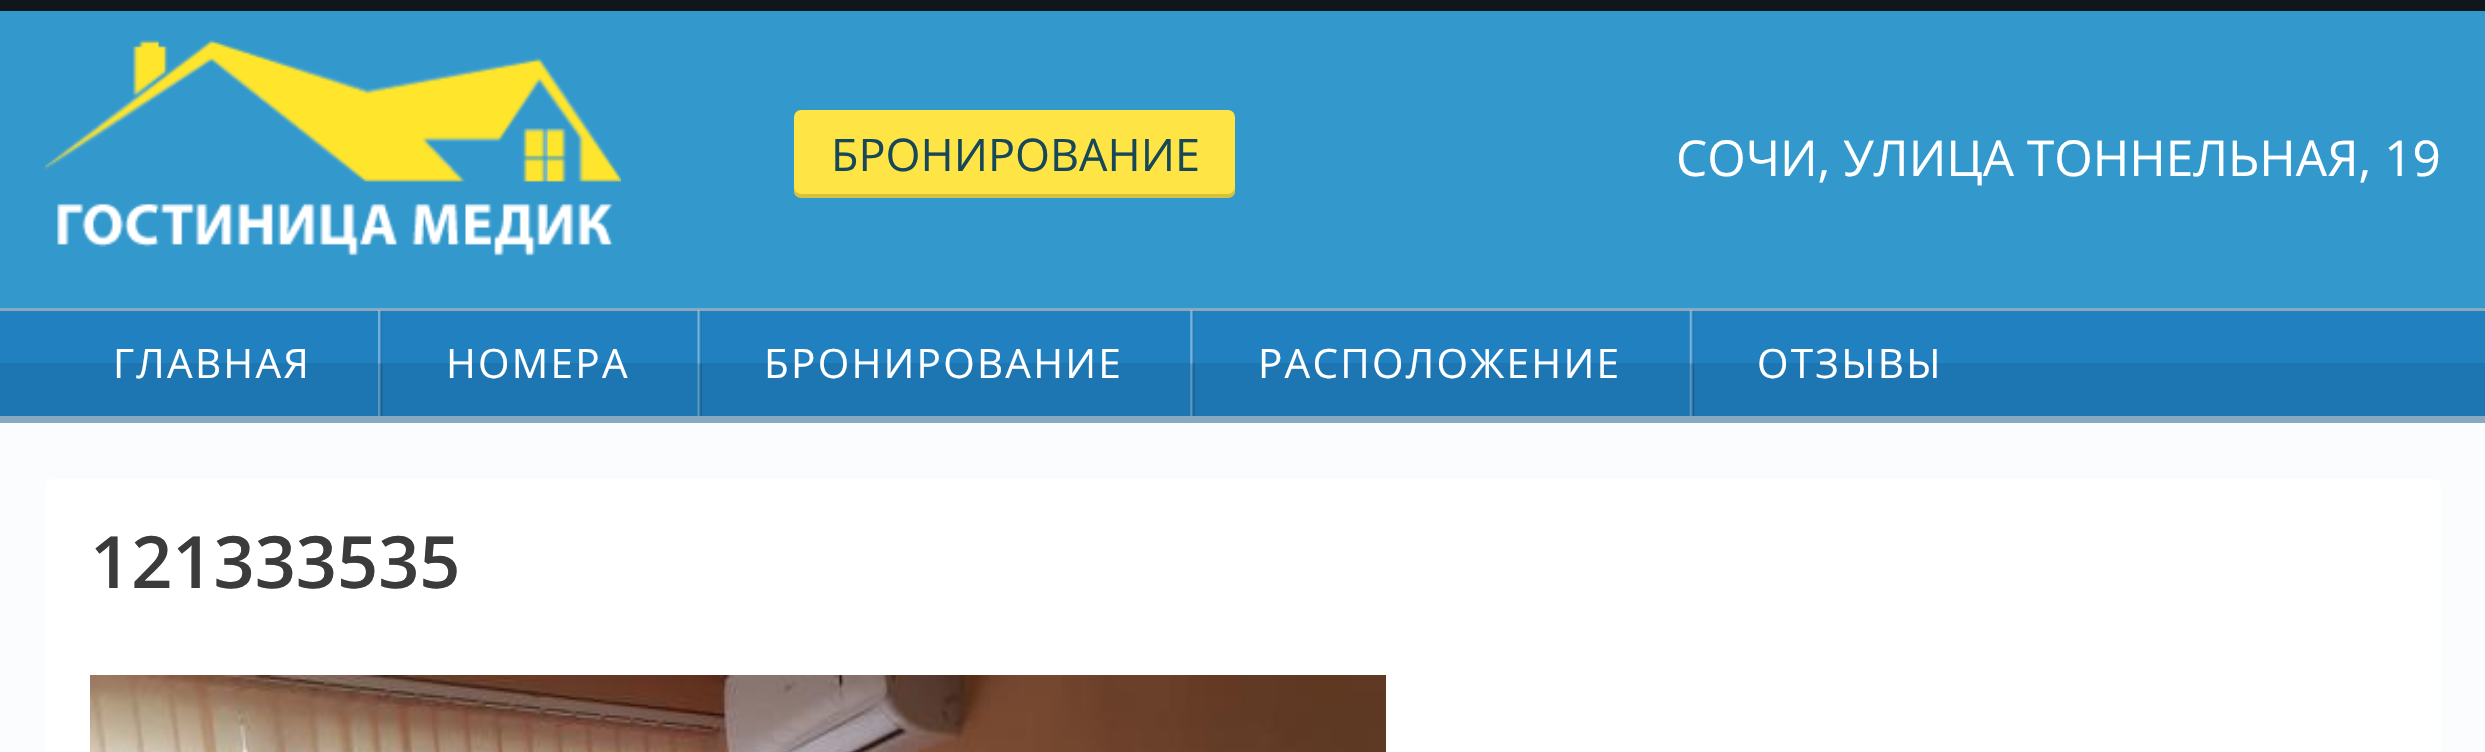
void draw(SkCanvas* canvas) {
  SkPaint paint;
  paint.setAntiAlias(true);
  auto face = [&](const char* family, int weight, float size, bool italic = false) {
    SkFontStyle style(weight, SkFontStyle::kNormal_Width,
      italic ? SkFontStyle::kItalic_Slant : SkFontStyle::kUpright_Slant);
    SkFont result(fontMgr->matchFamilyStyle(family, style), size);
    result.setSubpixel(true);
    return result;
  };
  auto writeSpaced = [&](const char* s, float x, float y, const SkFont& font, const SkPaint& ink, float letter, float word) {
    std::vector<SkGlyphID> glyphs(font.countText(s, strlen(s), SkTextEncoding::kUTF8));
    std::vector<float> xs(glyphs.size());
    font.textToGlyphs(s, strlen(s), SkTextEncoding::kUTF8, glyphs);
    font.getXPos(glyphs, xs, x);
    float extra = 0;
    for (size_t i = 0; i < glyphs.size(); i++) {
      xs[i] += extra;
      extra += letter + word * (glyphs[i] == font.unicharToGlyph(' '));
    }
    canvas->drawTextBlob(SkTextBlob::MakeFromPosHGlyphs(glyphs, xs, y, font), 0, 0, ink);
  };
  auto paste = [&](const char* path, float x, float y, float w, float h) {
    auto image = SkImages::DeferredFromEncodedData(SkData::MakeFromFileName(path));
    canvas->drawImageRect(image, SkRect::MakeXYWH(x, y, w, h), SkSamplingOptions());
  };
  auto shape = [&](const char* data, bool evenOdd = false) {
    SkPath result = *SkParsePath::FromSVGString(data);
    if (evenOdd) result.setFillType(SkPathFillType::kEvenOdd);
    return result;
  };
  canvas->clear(0xfffafcfe);
  paint.setColor(0xff3399cc);
  canvas->drawRect(SkRect::MakeXYWH(0, 11, 2485, 297), paint);
  paint.setColor(0xff10171c);
  canvas->drawRect(SkRect::MakeXYWH(0, 0, 2485, 11), paint);
  paste("img/1.png", 45, 40, 576, 216);
  paint.setColor(0xffffe445);
  canvas->drawRoundRect(SkRect::MakeXYWH(794, 110, 441, 88), 7, 7, paint);
  paint.setColor(0x26000000);
  canvas->drawPath(shape("M794 187C794 192 795 198 801 198H1228C1234 198 1235 192 1235 187C1235 190 1232 194 1228 194H801C797 194 794 190 794 187Z"), paint);
  {
    const struct { float x, y, w, h; SkColor color; } items[] = {
      {0, 308, 2485, 115, 0xff87aac1},
      {0, 311, 2485, 52, 0xff2080c0},
      {0, 363, 2485, 53, 0xff1d76b1},
    };
    for (auto [x, y, w, h, color] : items) {
      paint.setColor(color);
      canvas->drawRect(SkRect::MakeXYWH(x, y, w, h), paint);
    }
  }
  paste("img/2.png", 378, 310, 5, 107);
  paste("img/3.png", 697, 310, 5, 107);
  paste("img/4.png", 1190, 310, 5, 107);
  paste("img/5.png", 1689, 310, 6, 107);
  paint.setColor(0xffffffff);
  canvas->drawRoundRect(SkRect::MakeXYWH(45, 479, 2396, 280), 7, 7, paint);
  paste("img/6.png", 90, 675, 1296, 77);
  auto f0 = face("Open Sans", 400, 45);
  paint.setColor(0xff16485a);
  canvas->drawString("БРОНИРОВАНИЕ", 831, 171, f0, paint);
  auto f1 = face("Open Sans", 400, 49.5f);
  paint.setColor(0xffffffff);
  canvas->drawString("СОЧИ, УЛИЦА ТОННЕЛЬНАЯ, 19", 1676, 176, f1, paint);
  auto f2 = face("Open Sans", 400, 40.5f);
  {
    const struct { const char* s; float x, y; } items[] = {
      {"ГЛАВНАЯ", 113, 378},
      {"НОМЕРА", 446, 378},
      {"БРОНИРОВАНИЕ", 764, 378},
      {"РАСПОЛОЖЕНИЕ", 1258, 378},
      {"ОТЗЫВЫ", 1757, 378},
    };
    for (auto [s, x, y] : items) {
      writeSpaced(s, x, y, f2, paint, 2.25f, 0);
    }
  }
  auto f3 = face("Open Sans", 600, 72);
  paint.setColor(0xff3b3b3b);
  canvas->drawString("121333535", 90, 588, f3, paint);
}
